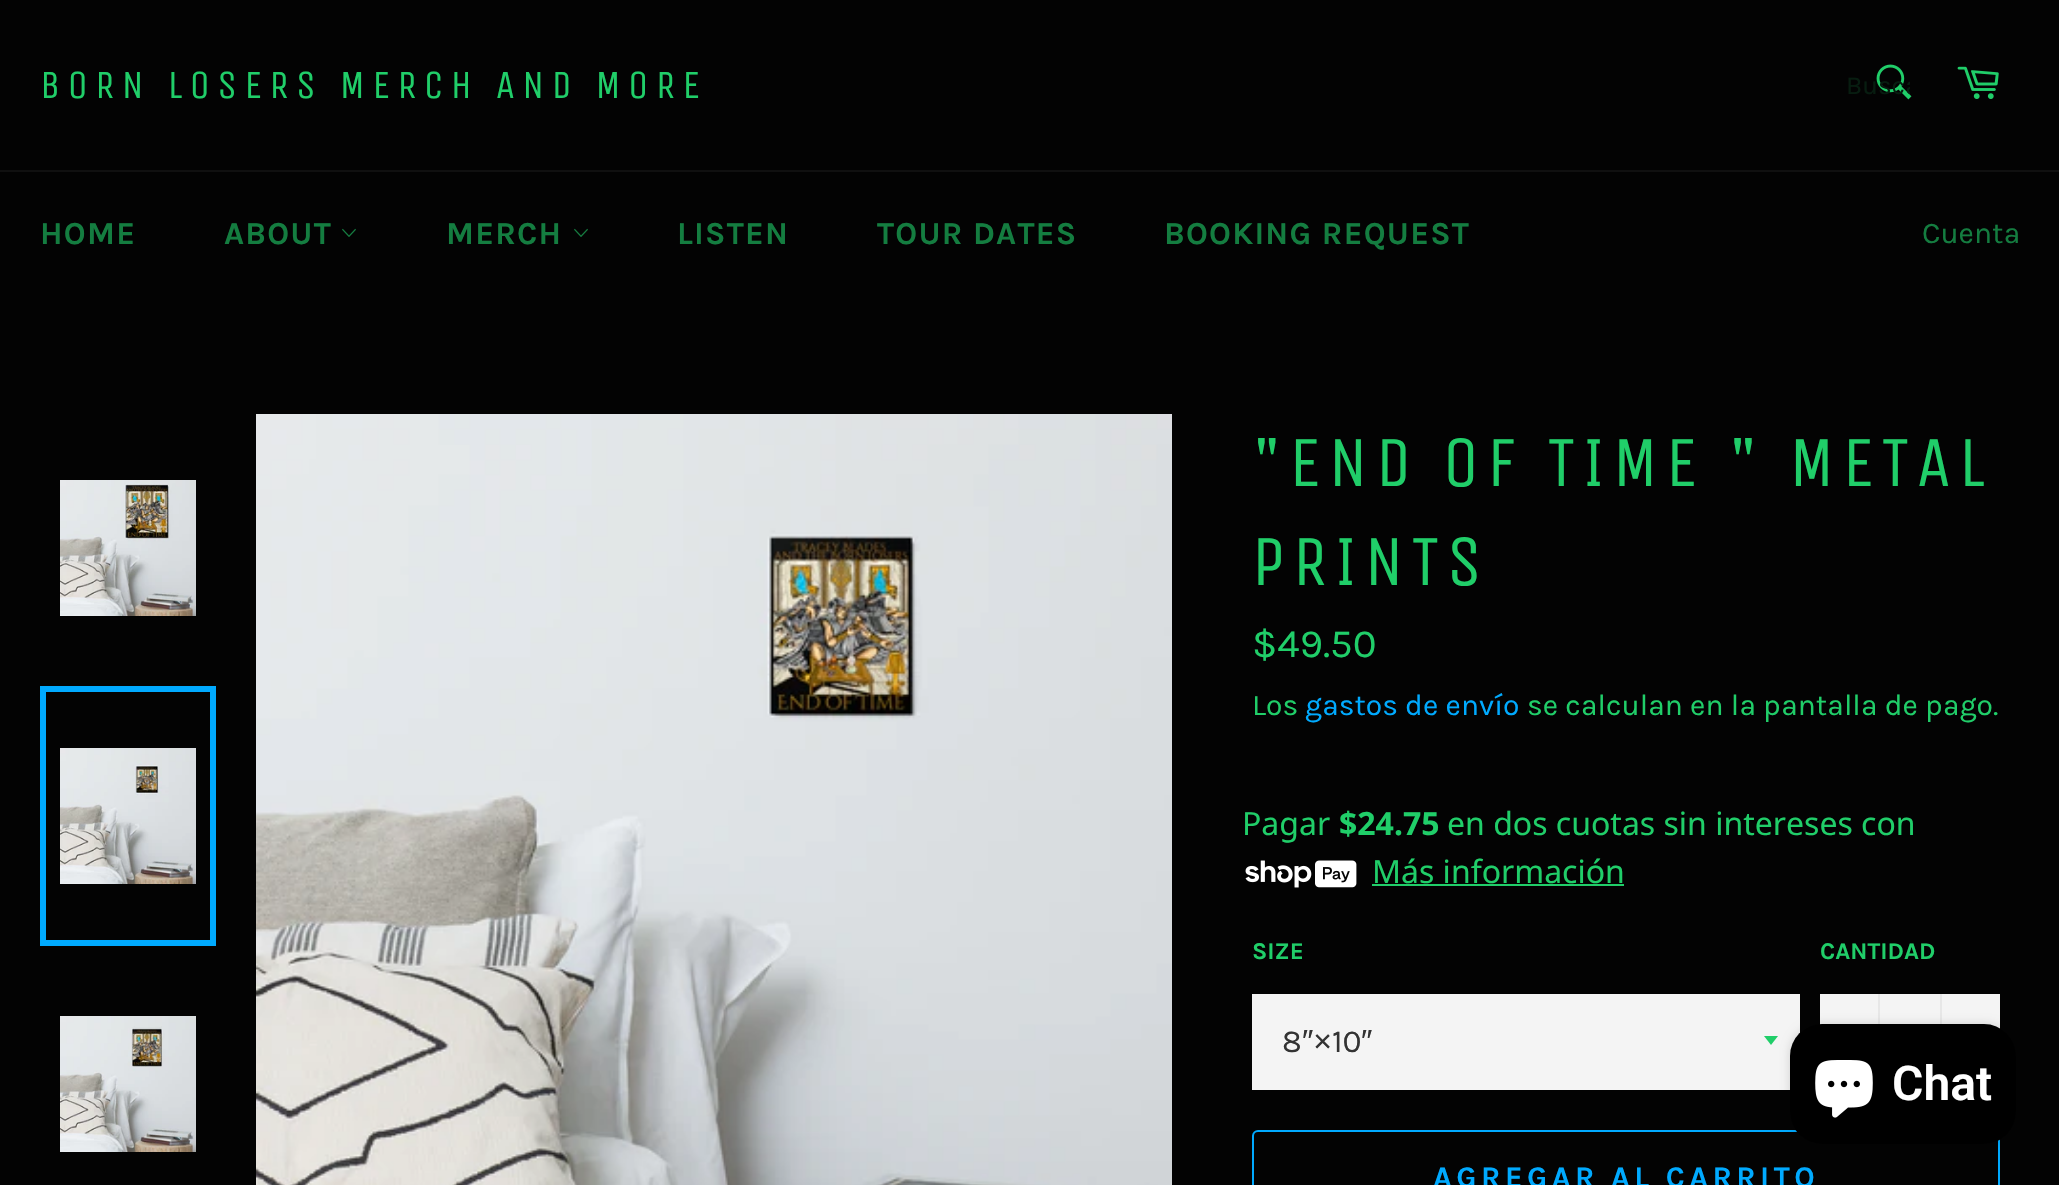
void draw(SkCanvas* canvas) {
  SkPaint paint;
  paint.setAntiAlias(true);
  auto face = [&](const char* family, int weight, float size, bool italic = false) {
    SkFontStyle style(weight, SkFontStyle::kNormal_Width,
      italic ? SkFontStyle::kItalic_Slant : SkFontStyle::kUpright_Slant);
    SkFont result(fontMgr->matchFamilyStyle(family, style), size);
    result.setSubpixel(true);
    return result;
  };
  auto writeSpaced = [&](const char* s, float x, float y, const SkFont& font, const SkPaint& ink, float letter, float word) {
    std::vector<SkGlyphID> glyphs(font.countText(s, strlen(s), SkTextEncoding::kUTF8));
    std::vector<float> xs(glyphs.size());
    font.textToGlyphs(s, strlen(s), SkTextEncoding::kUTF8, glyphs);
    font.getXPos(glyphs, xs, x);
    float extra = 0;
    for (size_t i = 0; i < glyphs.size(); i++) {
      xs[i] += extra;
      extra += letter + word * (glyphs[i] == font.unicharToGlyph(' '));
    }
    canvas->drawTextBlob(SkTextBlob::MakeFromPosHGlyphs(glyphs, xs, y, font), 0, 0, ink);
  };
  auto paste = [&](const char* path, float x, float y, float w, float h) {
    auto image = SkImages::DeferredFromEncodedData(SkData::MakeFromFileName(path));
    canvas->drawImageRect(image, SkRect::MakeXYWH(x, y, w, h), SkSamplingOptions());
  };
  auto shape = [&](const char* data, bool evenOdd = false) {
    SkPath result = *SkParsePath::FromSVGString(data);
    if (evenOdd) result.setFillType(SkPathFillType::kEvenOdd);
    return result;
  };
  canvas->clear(0xff030303);
  paste("img/1.png", 1876, 64, 36, 36);
  paste("img/2.png", 1957, 66, 42, 33);
  paint.setColor(0xff101010);
  canvas->drawRect(SkRect::MakeXYWH(0, 170, 2059, 2), paint);
  paste("img/3.png", 342, 228, 14, 9);
  paste("img/3.png", 574, 228, 14, 9);
  paste("img/4.png", 60, 480, 136, 136);
  paste("img/5.png", 60, 748, 136, 136);
  paint.setStroke(true);
  paint.setStrokeWidth(6);
  paint.setColor(0xff00aaff);
  canvas->drawRect(SkRect::MakeXYWH(43, 689, 170, 254), paint);
  paste("img/6.png", 60, 1016, 136, 136);
  paste("img/7.png", 256, 414, 916, 771);
  paste("img/8.png", 1245, 860, 112, 28);
  paint.setStroke(false);
  paint.setColor(0xff20ce69);
  canvas->drawRect(SkRect::MakeXYWH(1372, 884, 252, 2), paint);
  paint.setColor(0xfff4f4f4);
  canvas->drawRect(SkRect::MakeXYWH(1252, 994, 548, 96), paint);
  paint.setColor(0xff20ce69);
  canvas->drawPath(shape("M1764 1036L1771 1045L1778 1036Z"), paint);
  {
    const struct { float x, y, w, h; SkColor color; } items[] = {
      {1820, 994, 180, 35, 0xfff4f4f4},
      {1878, 994, 2, 30, 0xffe7e7e7},
      {1940, 994, 2, 30, 0xffe7e7e7},
    };
    for (auto [x, y, w, h, color] : items) {
      paint.setColor(color);
      canvas->drawRect(SkRect::MakeXYWH(x, y, w, h), paint);
    }
  }
  paint.setStroke(true);
  paint.setStrokeWidth(2);
  paint.setColor(0xff00aaff);
  canvas->drawRoundRect(SkRect::MakeXYWH(1253, 1131, 746, 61), 5, 5, paint);
  paint.setStroke(false);
  paint.setColor(0x26000000);
  paint.setMaskFilter(SkMaskFilter::MakeBlur(kNormal_SkBlurStyle, 5));
  canvas->drawRoundRect(SkRect::MakeXYWH(1790, 1024, 226, 120), 32, 32, paint);
  paint.setMaskFilter(nullptr);
  paint.setColor(0xff000000);
  canvas->drawRoundRect(SkRect::MakeXYWH(1790, 1024, 226, 120), 32, 32, paint);
  paste("img/9.png", 1815, 1060, 58, 58);
  auto f0 = face("Unica One", 400, 40);
  paint.setColor(0xff20ce69);
  writeSpaced("BORN LOSERS MERCH AND MORE", 40, 98, f0, paint, 7.2f, 0);
  canvas->save();
  canvas->clipRect(SkRect::MakeXYWH(1846, 70, 64, 30));
  auto f1 = face("Karla", 400, 26);
  paint.setColor(0xff071d10);
  canvas->drawString("Busca", 1846, 94, f1, paint);
  canvas->restore();
  auto f2 = face("Karla", 700, 32);
  paint.setColor(0xff147d40);
  {
    const struct { const char* s; float x, y; } items[] = {
      {"HOME", 40, 244},
      {"ABOUT", 224, 244},
      {"MERCH", 446, 244},
      {"LISTEN", 677, 244},
      {"TOUR DATES", 877, 244},
      {"BOOKING REQUEST", 1164, 244},
    };
    for (auto [s, x, y] : items) {
      writeSpaced(s, x, y, f2, paint, 1.25f, 0);
    }
  }
  auto f3 = face("Karla", 400, 30);
  canvas->drawString("Cuenta", 1922, 243, f3, paint);
  auto f4 = face("Unica One", 400, 72);
  paint.setColor(0xff20ce69);
  writeSpaced("\"END OF TIME \" METAL", 1252, 486, f4, paint, 7.2f, 0);
  writeSpaced("PRINTS", 1252, 585, f4, paint, 7.2f, 0);
  auto f5 = face("Karla", 400, 40);
  canvas->drawString("$49.50", 1252, 657, f5, paint);
  canvas->drawString("Los", 1252, 715, f3, paint);
  paint.setColor(0xff00aaff);
  canvas->drawString("gastos de envío", 1305, 715, f3, paint);
  paint.setColor(0xff20ce69);
  canvas->drawString("se calculan en la pantalla de pago.", 1527, 715, f3, paint);
  auto f6 = face("Noto Sans", 400, 32);
  canvas->drawString("Pagar", 1242, 835, f6, paint);
  auto f7 = face("Noto Sans", 700, 32);
  canvas->drawString("$24.75", 1339, 835, f7, paint);
  canvas->drawString("en dos cuotas sin intereses con", 1447, 835, f6, paint);
  canvas->drawString("Más información", 1372, 883, f6, paint);
  auto f8 = face("Karla", 700, 24);
  canvas->drawString("SIZE", 1252, 959, f8, paint);
  auto f9 = face("Karla", 400, 32);
  paint.setColor(0xff333333);
  canvas->drawString("8", 1282, 1052, f9, paint);
  auto f10 = face("Liberation Sans", 400, 32);
  canvas->drawString("″×", 1302, 1052, f10, paint);
  canvas->drawString("10", 1332, 1052, f9, paint);
  canvas->drawString("″", 1361, 1052, f10, paint);
  paint.setColor(0xff20ce69);
  canvas->drawString("CANTIDAD", 1820, 959, f8, paint);
  auto f11 = face("Karla", 700, 30);
  paint.setColor(0xff00aaff);
  writeSpaced("AGREGAR AL CARRITO", 1433, 1187, f11, paint, 4.5f, 0);
  auto f12 = face("Roboto", 600, 48);
  paint.setColor(0xffffffff);
  canvas->drawString("Chat", 1892, 1100, f12, paint);
}
